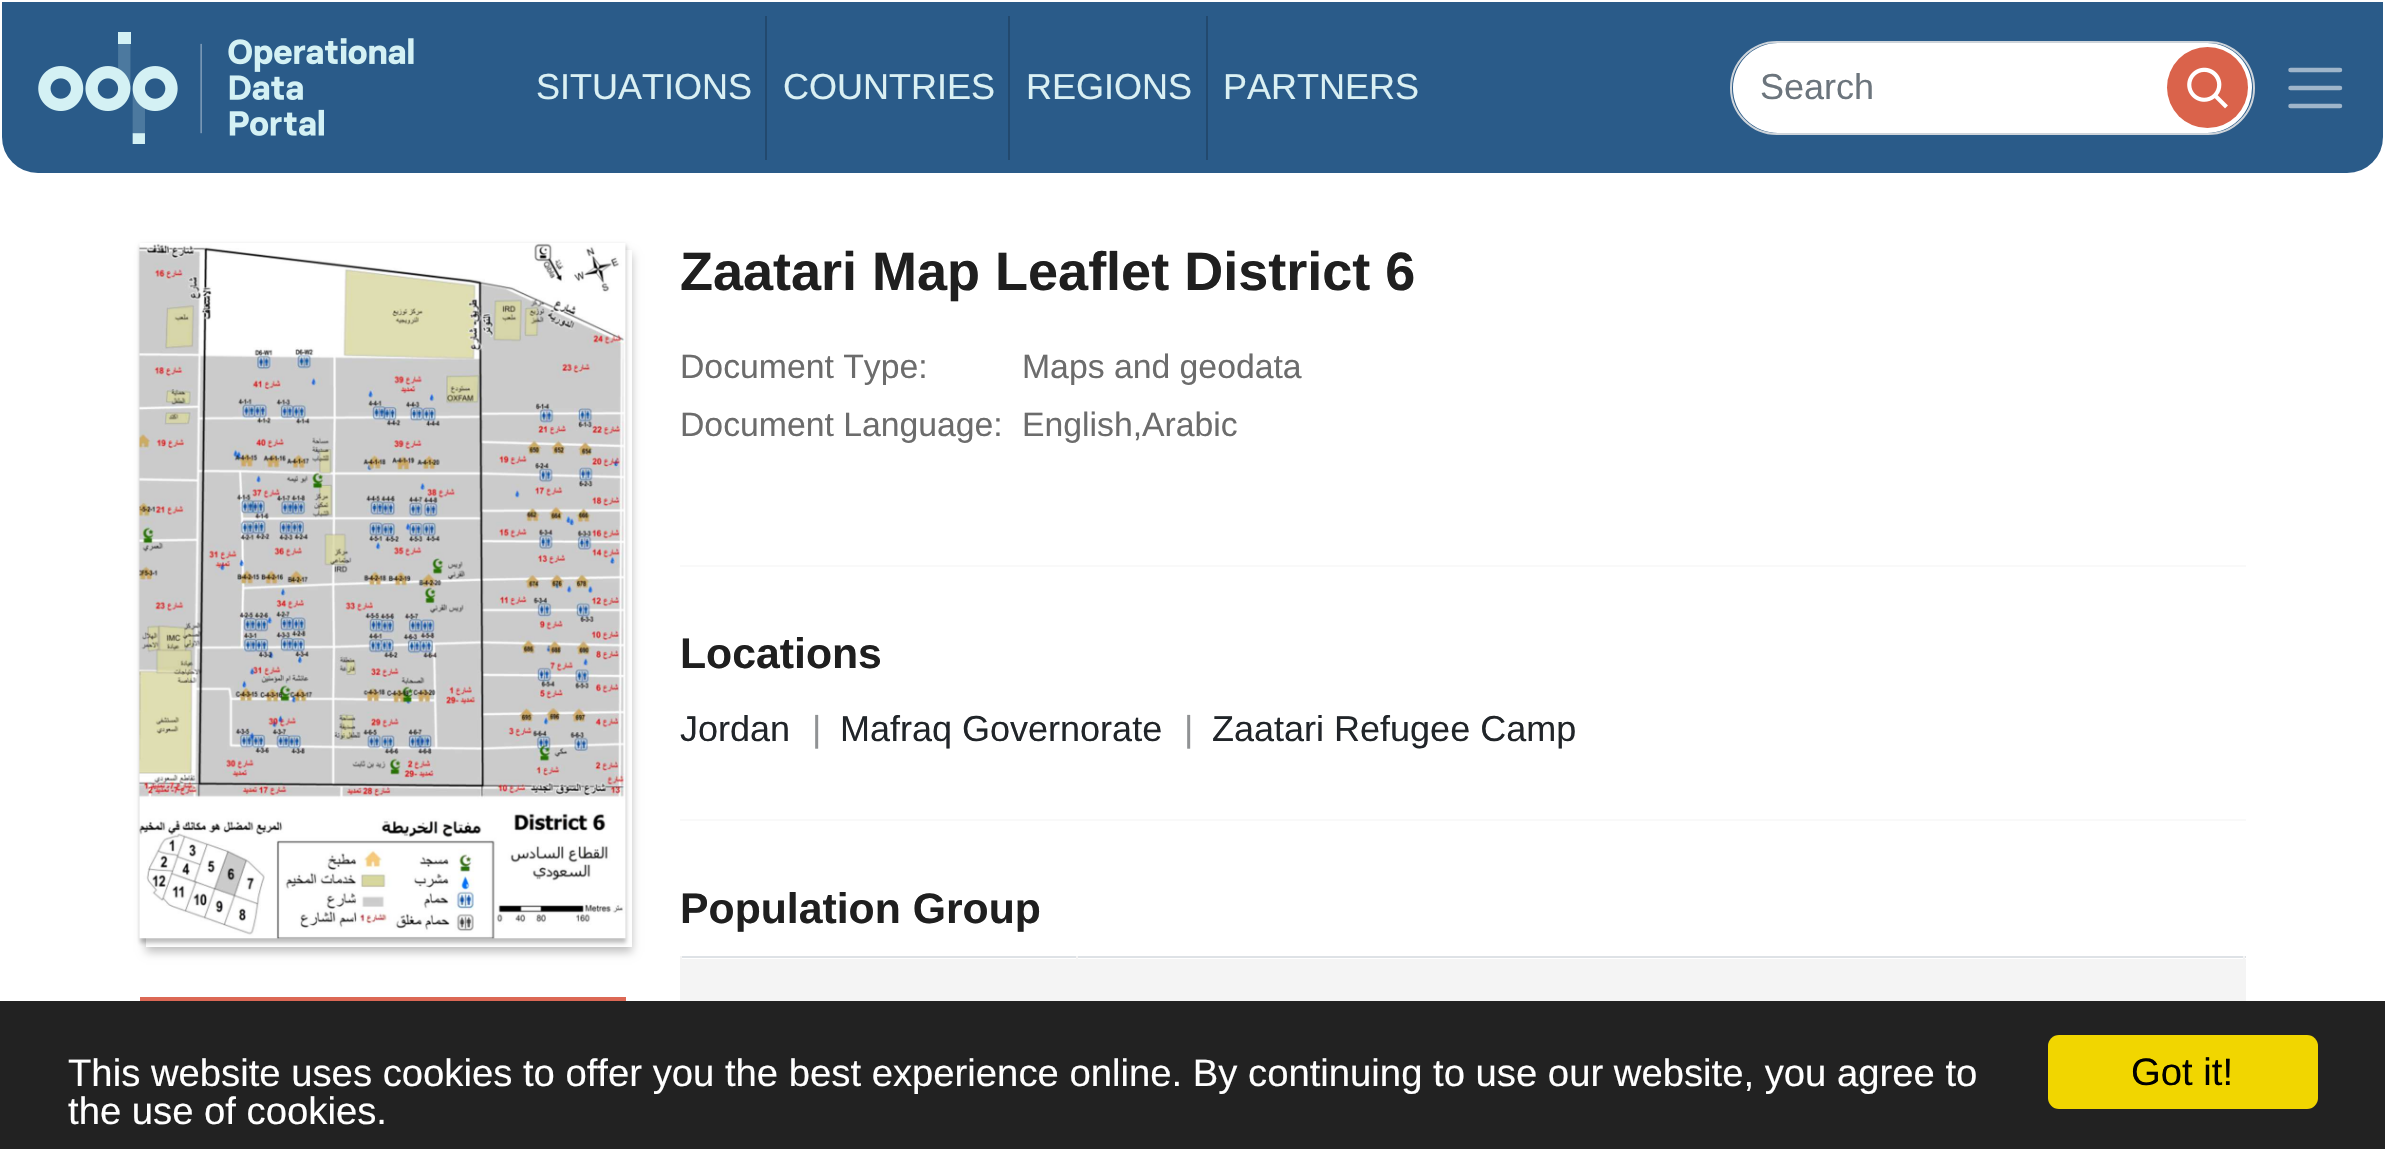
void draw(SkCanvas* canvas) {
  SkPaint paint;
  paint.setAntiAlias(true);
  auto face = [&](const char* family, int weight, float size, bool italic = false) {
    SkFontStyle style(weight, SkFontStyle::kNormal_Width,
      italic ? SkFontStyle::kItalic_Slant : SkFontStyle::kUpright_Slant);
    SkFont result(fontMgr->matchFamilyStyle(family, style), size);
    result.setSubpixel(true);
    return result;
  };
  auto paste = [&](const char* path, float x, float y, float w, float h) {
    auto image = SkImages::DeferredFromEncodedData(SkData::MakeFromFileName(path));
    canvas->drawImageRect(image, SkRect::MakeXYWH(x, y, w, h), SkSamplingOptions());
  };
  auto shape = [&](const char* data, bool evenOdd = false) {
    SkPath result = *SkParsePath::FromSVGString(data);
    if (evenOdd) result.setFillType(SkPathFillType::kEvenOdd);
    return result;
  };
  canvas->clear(0xffffffff);
  paint.setColor(0xff2a5b89);
  canvas->drawPath(shape("M5.5 5.5H2379.5V137C2379.5 155 2365 169.5 2347 169.5H38C20 169.5 5.5 155 5.5 137Z"), paint);
  paint.setStroke(true);
  paint.setStrokeWidth(7);
  canvas->drawPath(shape("M5.5 5.5H2379.5V137C2379.5 155 2365 169.5 2347 169.5H38C20 169.5 5.5 155 5.5 137Z"), paint);
  paste("img/1.png", 38, 32, 376, 112);
  paint.setStroke(false);
  {
    const struct { float x, y, w, h; SkColor color; } items[] = {
      {765, 16, 2, 144, 0xff22496e},
      {1008, 16, 2, 144, 0xff22496e},
      {1206, 16, 2, 144, 0xff22496e},
    };
    for (auto [x, y, w, h, color] : items) {
      paint.setColor(color);
      canvas->drawRect(SkRect::MakeXYWH(x, y, w, h), paint);
    }
  }
  paint.setColor(0xffffffff);
  canvas->drawRoundRect(SkRect::MakeXYWH(1733, 43, 519, 90), 45, 45, paint);
  paint.setStroke(true);
  paint.setStrokeWidth(2);
  paint.setColor(0xffced4da);
  canvas->drawRoundRect(SkRect::MakeXYWH(1731, 42, 523, 92), 46, 46, paint);
  paint.setStroke(false);
  paint.setColor(0xffda634b);
  canvas->drawCircle(2207.5f, 87.5f, 40.5f, paint);
  paste("img/2.png", 2187, 67, 41, 42);
  paint.setStroke(true);
  paint.setStrokeWidth(4.5f);
  paint.setStrokeCap(SkPaint::kRound_Cap);
  paint.setColor(0xff9fb5ca);
  canvas->drawPath(shape("M2290.5 70H2340M2290.5 88H2340M2290.5 106H2340"), paint);
  paint.setStroke(false);
  paint.setColor(0x40000000);
  paint.setMaskFilter(SkMaskFilter::MakeBlur(kNormal_SkBlurStyle, 4.5f));
  canvas->drawRect(SkRect::MakeXYWH(146, 254, 486, 698), paint);
  paint.setMaskFilter(nullptr);
  paint.setColor(0xffffffff);
  canvas->drawRect(SkRect::MakeXYWH(146, 250, 486, 697), paint);
  paint.setColor(0x40000000);
  paint.setMaskFilter(SkMaskFilter::MakeBlur(kNormal_SkBlurStyle, 2));
  canvas->drawRect(SkRect::MakeXYWH(140, 245, 486, 698), paint);
  paint.setMaskFilter(nullptr);
  paste("img/3.png", 139, 243, 487, 696);
  {
    const SkColor colors[] = {0xffdc6855, 0xffda604d};
    const float stops[] = {0, 1};
    const SkPoint ends[] = {{383, 997}, {383, 1125}};
    paint.setShader(SkGradientShader::MakeLinear(ends, colors, stops, 2, SkTileMode::kClamp));
    paint.setAlpha(255);
  }
  canvas->drawRect(SkRect::MakeXYWH(140, 997, 486, 4), paint);
  paint.setShader(nullptr);
  {
    const struct { float x, y, w, h; SkColor color; } items[] = {
      {680, 565, 1566, 2, 0xfff9f9f9},
      {680, 819, 1566, 2, 0xfff9f9f9},
      {680, 956, 1566, 2, 0xffdee2e6},
      {682, 959, 394, 42, 0xfff4f4f4},
      {680, 956, 2, 45, 0xfff4f4f4},
      {1078, 959, 1168, 42, 0xfff4f4f4},
      {2243, 956, 2, 3, 0xfff4f4f4},
      {1076, 956, 2, 45, 0xfff4f4f4},
      {0, 1001, 2385, 148, 0xff222222},
    };
    for (auto [x, y, w, h, color] : items) {
      paint.setColor(color);
      canvas->drawRect(SkRect::MakeXYWH(x, y, w, h), paint);
    }
  }
  paint.setColor(0xfff1d600);
  canvas->drawRoundRect(SkRect::MakeXYWH(2048, 1035, 270, 74), 11, 11, paint);
  auto f0 = face("Liberation Sans", 400, 36);
  paint.setColor(0xffdaf0f3);
  {
    const struct { const char* s; float x, y; } items[] = {
      {"SITUATIONS", 536, 99},
      {"COUNTRIES", 783, 99},
      {"REGIONS", 1026, 99},
      {"PARTNERS", 1223, 99},
    };
    for (auto [s, x, y] : items) {
      canvas->drawString(s, x, y, f0, paint);
    }
  }
  paint.setColor(0xff6c757d);
  canvas->drawString("Search", 1760, 99, f0, paint);
  auto f1 = face("Liberation Sans", 700, 54);
  paint.setColor(0xff1f1f1f);
  canvas->drawString("Zaatari Map Leaflet District 6", 680, 290, f1, paint);
  auto f2 = face("Liberation Sans", 400, 33.75f);
  paint.setColor(0xff6c6c6c);
  {
    const struct { const char* s; float x, y; } items[] = {
      {"Document Type:", 680, 378},
      {"Maps and geodata", 1022, 378},
      {"Document Language:", 680, 436},
      {"English,Arabic", 1022, 436},
    };
    for (auto [s, x, y] : items) {
      canvas->drawString(s, x, y, f2, paint);
    }
  }
  auto f3 = face("Liberation Sans", 700, 42.75f);
  paint.setColor(0xff1f1f1f);
  canvas->drawString("Locations", 680, 668, f3, paint);
  paint.setColor(0xff212529);
  canvas->drawString("Jordan", 680, 741, f0, paint);
  paint.setColor(0xff909294);
  canvas->drawString("|", 812, 741, f0, paint);
  paint.setColor(0xff212529);
  canvas->drawString("Mafraq Governorate", 840, 741, f0, paint);
  paint.setColor(0xff909294);
  canvas->drawString("|", 1184, 741, f0, paint);
  paint.setColor(0xff212529);
  canvas->drawString("Zaatari Refugee Camp", 1212, 741, f0, paint);
  paint.setColor(0xff1f1f1f);
  canvas->drawString("Population Group", 680, 923, f3, paint);
  auto f4 = face("Liberation Sans", 400, 38.25f);
  paint.setColor(0xffffffff);
  canvas->drawString("This website uses cookies to offer you the best experience online. By continuing to use our website, you agree to", 68, 1086, f4, paint);
  canvas->drawString("the use of cookies.", 68, 1124, f4, paint);
  paint.setColor(0xff000000);
  canvas->drawString("Got it!", 2131, 1085, f4, paint);
}
